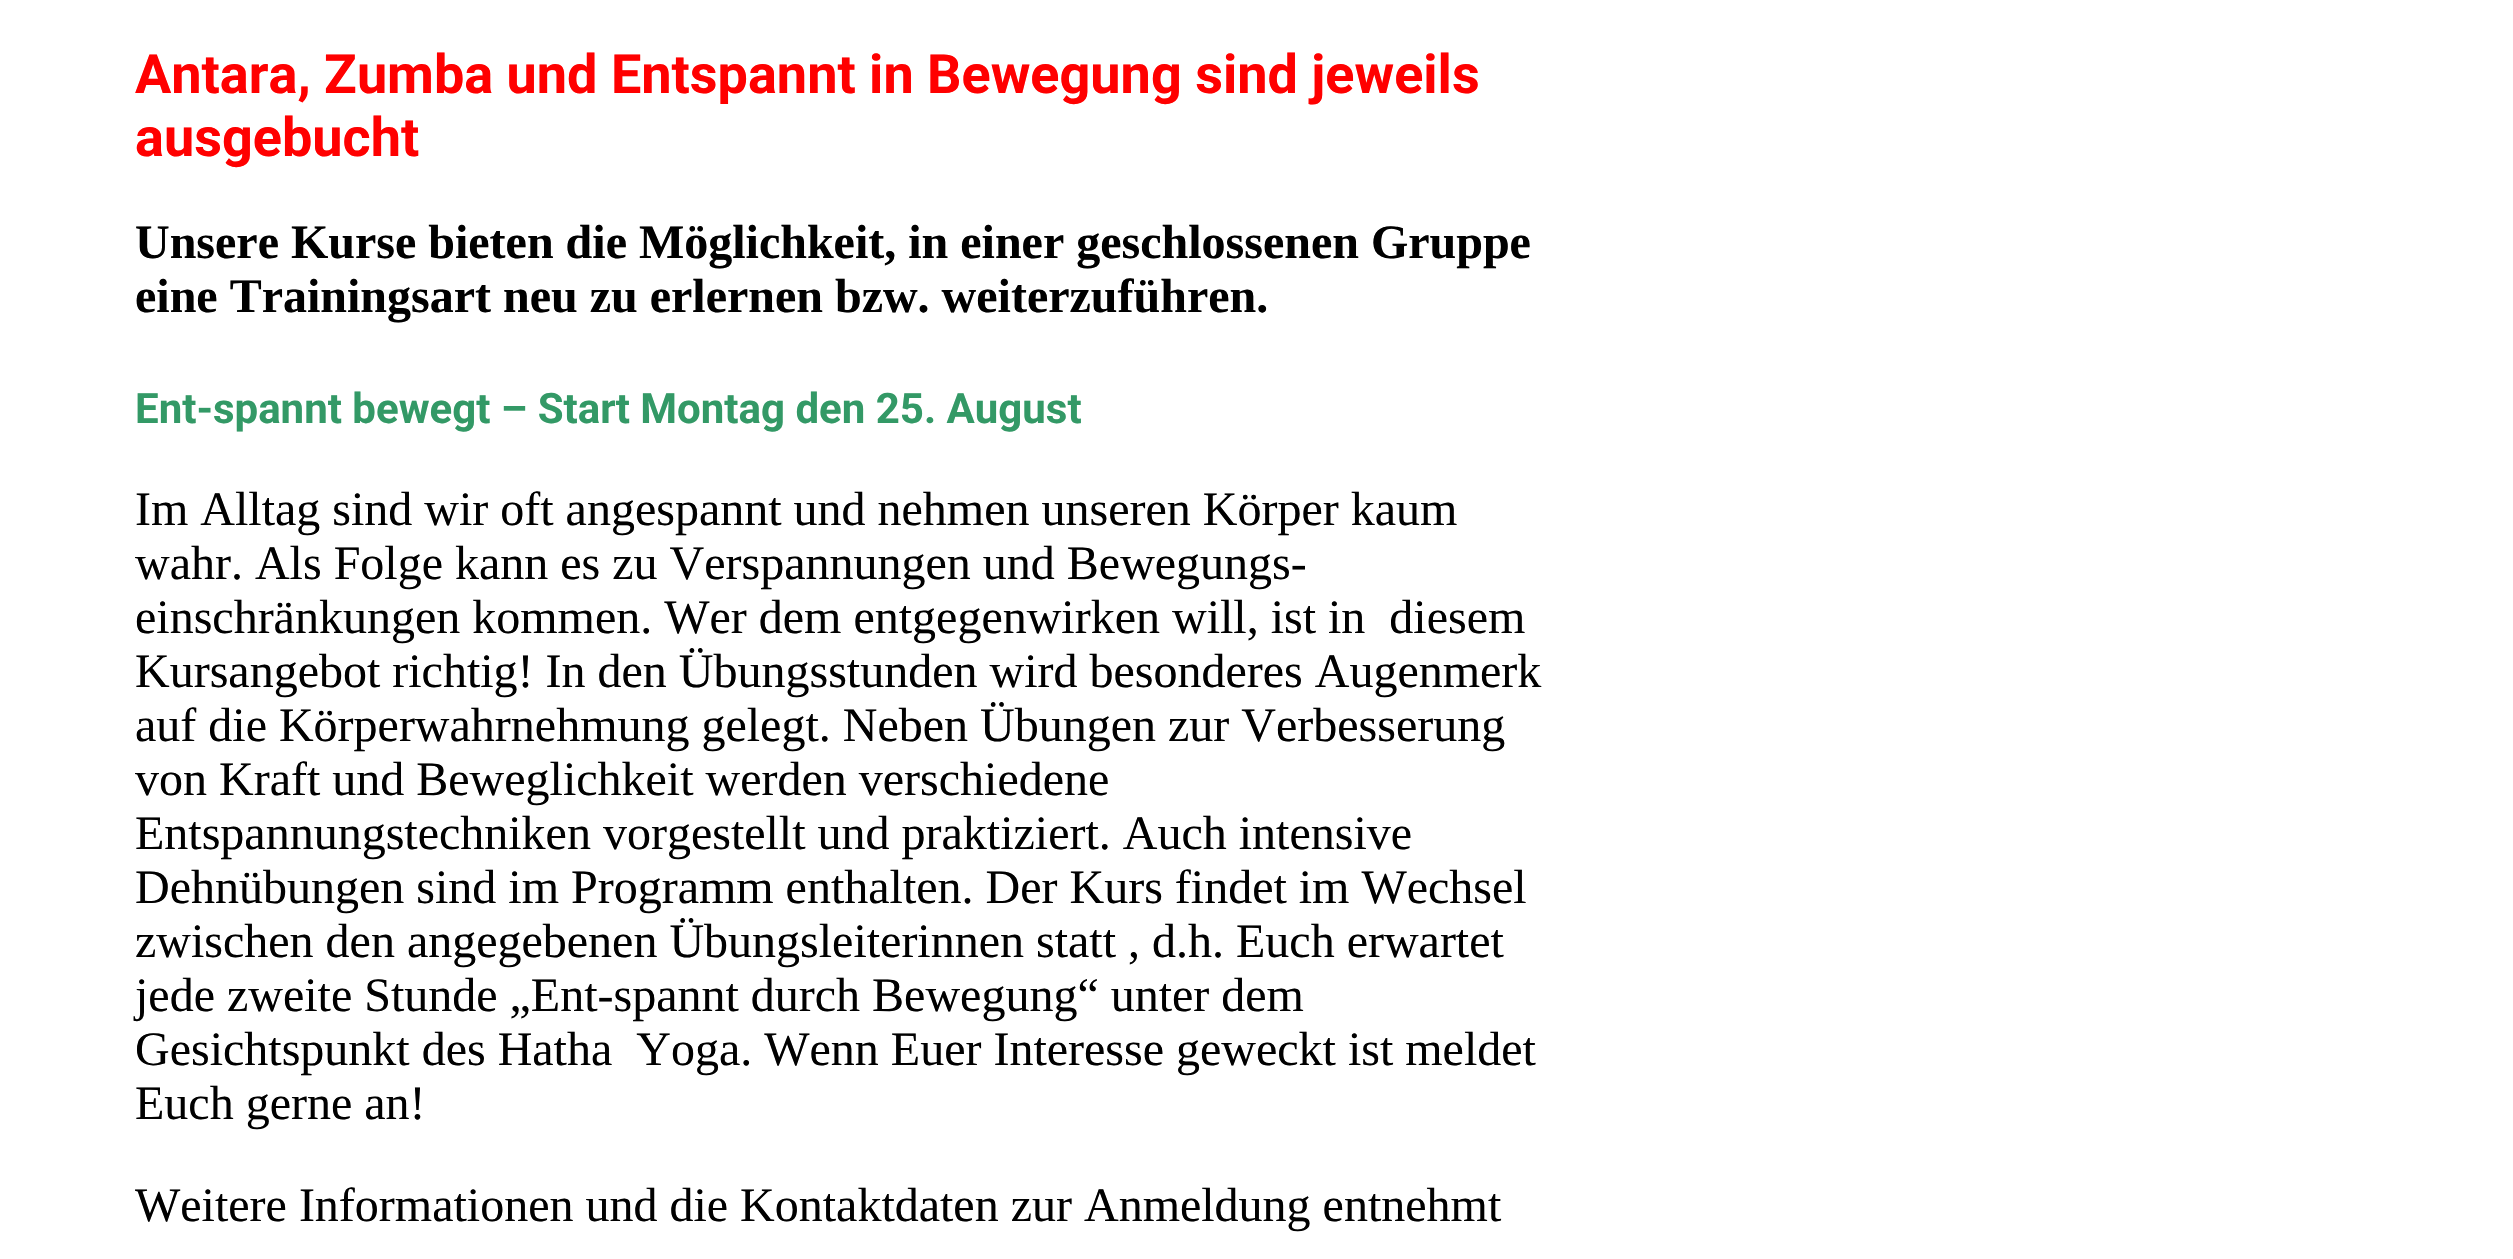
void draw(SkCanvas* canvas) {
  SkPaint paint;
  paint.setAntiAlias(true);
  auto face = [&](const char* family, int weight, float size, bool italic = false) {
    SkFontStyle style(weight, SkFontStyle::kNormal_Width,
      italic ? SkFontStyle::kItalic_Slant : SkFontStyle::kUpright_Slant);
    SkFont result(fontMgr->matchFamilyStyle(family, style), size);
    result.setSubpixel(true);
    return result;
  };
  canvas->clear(0xffffffff);
  auto f0 = face("Roboto", 700, 54);
  paint.setColor(0xffff0000);
  canvas->drawString("Antara, Zumba und Entspannt in Bewegung sind jeweils", 135, 93, f0, paint);
  canvas->drawString("ausgebucht", 135, 156, f0, paint);
  auto f1 = face("Liberation Serif", 700, 48);
  paint.setColor(0xff000000);
  canvas->drawString("Unsere Kurse bieten die Möglichkeit, in einer geschlossenen Gruppe", 135, 258, f1, paint);
  canvas->drawString("eine Trainingsart neu zu erlernen bzw. weiterzuführen.", 135, 312, f1, paint);
  auto f2 = face("Roboto", 700, 42);
  paint.setColor(0xff339966);
  canvas->drawString("Ent-spannt bewegt – Start Montag den 25. August", 135, 423, f2, paint);
  auto f3 = face("Liberation Serif", 400, 48);
  paint.setColor(0xff000000);
  {
    const struct { const char* s; float x, y; } items[] = {
      {"Im Alltag sind wir oft angespannt und nehmen unseren Körper kaum", 135, 525},
      {"wahr. Als Folge kann es zu Verspannungen und Bewegungs-", 135, 579},
      {"einschränkungen kommen. Wer dem entgegenwirken will, ist in  diesem", 135, 633},
      {"Kursangebot richtig! In den Übungsstunden wird besonderes Augenmerk", 135, 687},
      {"auf die Körperwahrnehmung gelegt. Neben Übungen zur Verbesserung", 135, 741},
      {"von Kraft und Beweglichkeit werden verschiedene", 135, 795},
      {"Entspannungstechniken vorgestellt und praktiziert. Auch intensive", 135, 849},
      {"Dehnübungen sind im Programm enthalten. Der Kurs findet im Wechsel", 135, 903},
      {"zwischen den angegebenen Übungsleiterinnen statt , d.h. Euch erwartet", 135, 957},
      {"jede zweite Stunde „Ent-spannt durch Bewegung“ unter dem", 135, 1011},
      {"Gesichtspunkt des Hatha  Yoga. Wenn Euer Interesse geweckt ist meldet", 135, 1065},
      {"Euch gerne an!", 135, 1119},
      {"Weitere Informationen und die Kontaktdaten zur Anmeldung entnehmt", 135, 1221},
    };
    for (auto [s, x, y] : items) {
      canvas->drawString(s, x, y, f3, paint);
    }
  }
}
